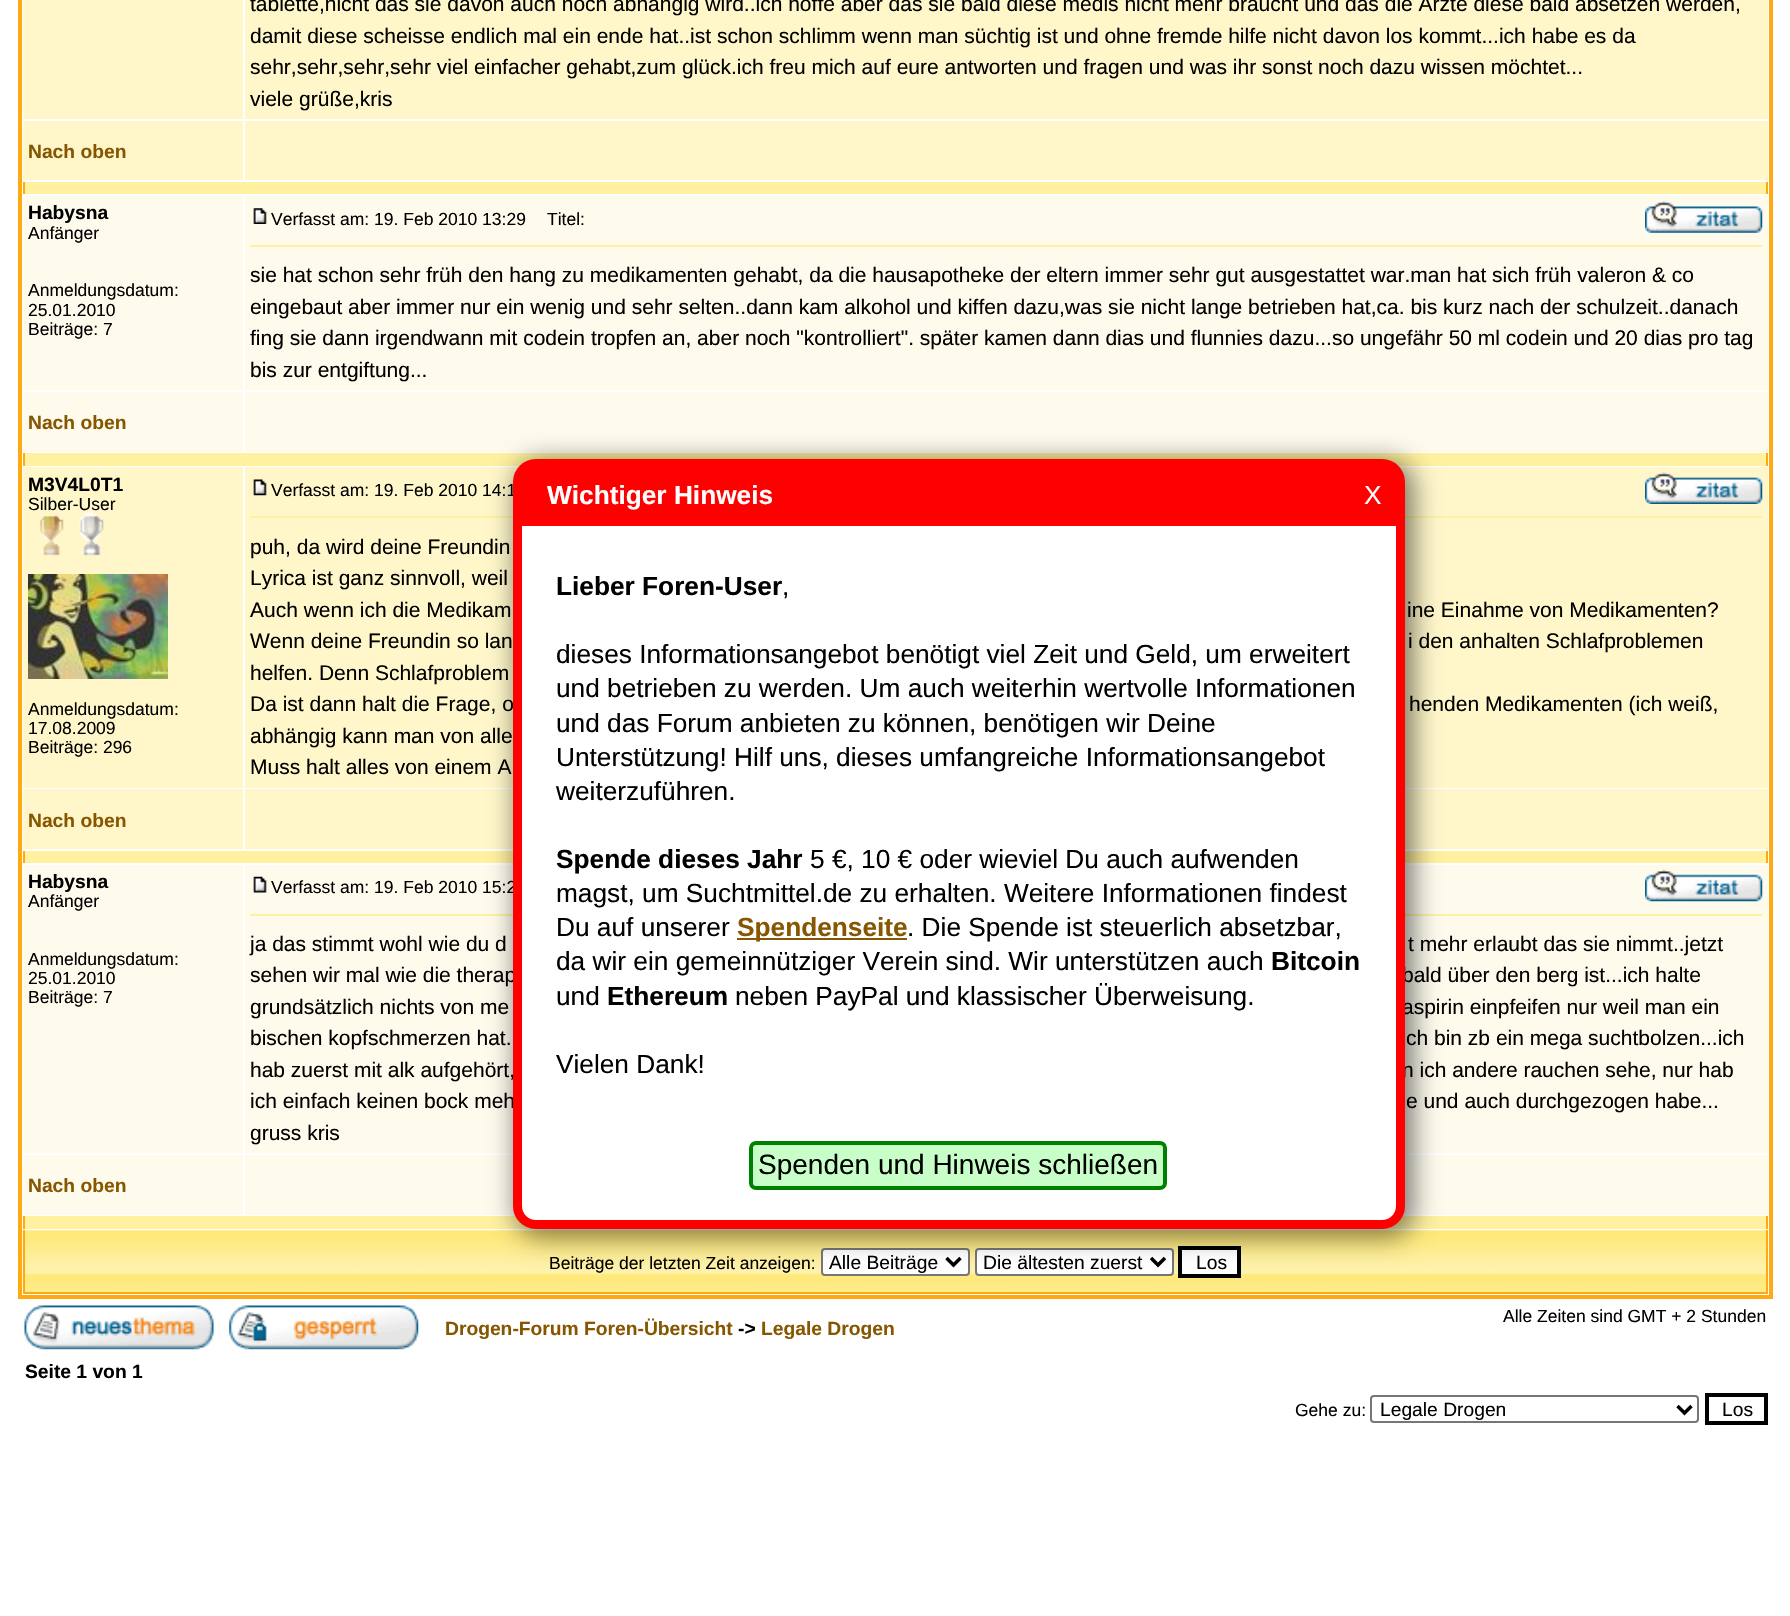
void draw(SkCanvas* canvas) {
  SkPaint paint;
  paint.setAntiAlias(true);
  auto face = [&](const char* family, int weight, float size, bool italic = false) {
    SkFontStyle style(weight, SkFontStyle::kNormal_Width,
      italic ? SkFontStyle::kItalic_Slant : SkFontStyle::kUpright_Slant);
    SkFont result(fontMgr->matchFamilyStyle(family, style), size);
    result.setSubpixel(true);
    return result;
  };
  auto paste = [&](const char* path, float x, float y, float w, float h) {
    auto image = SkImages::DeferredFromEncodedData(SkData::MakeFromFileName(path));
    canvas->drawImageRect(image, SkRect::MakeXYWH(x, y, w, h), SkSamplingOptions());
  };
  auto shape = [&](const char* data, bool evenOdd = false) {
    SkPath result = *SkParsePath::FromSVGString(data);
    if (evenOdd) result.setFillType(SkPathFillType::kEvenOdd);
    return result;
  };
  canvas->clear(0xffffffff);
  paint.setStroke(true);
  paint.setStrokeWidth(4);
  paint.setColor(0xffffaa12);
  canvas->drawRect(SkRect::MakeXYWH(20, -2, 1751, 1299), paint);
  paint.setStroke(false);
  {
    const struct { float x, y, w, h; SkColor color; } items[] = {
      {23, 0, 220, 119, 0xfffff7ca},
      {245, 0, 1523, 119, 0xfffff7ca},
      {23, 121, 220, 59, 0xfffff7ca},
      {245, 121, 1523, 59, 0xfffff7ca},
      {25, 182, 1741, 12, 0xfffff19f},
      {1766, 182, 2, 12, 0xffffaa12},
      {23, 182, 2, 12, 0xffffaa12},
      {23, 196, 220, 194, 0xfffefbed},
      {245, 196, 1523, 194, 0xfffefbed},
    };
    for (auto [x, y, w, h, color] : items) {
      paint.setColor(color);
      canvas->drawRect(SkRect::MakeXYWH(x, y, w, h), paint);
    }
  }
  paste("img/1.png", 253, 208, 14, 16);
  paste("img/2.png", 1645, 201, 118, 32);
  {
    const struct { float x, y, w, h; SkColor color; } items[] = {
      {250, 245, 1512, 2, 0xfffff19f},
      {23, 392, 220, 60, 0xfffefbed},
      {245, 392, 1523, 60, 0xfffefbed},
      {25, 453, 1741, 13, 0xfffff19f},
      {1766, 453, 2, 13, 0xffffaa12},
      {23, 453, 2, 13, 0xffffaa12},
      {23, 467, 220, 321, 0xfffff7ca},
    };
    for (auto [x, y, w, h, color] : items) {
      paint.setColor(color);
      canvas->drawRect(SkRect::MakeXYWH(x, y, w, h), paint);
    }
  }
  paste("img/3.png", 40, 512, 64, 44);
  paste("img/4.png", 28, 574, 140, 105);
  canvas->drawRect(SkRect::MakeXYWH(245, 467, 1523, 321), paint);
  paste("img/5.png", 253, 479, 14, 17);
  paste("img/6.png", 1645, 472, 118, 32);
  {
    const struct { float x, y, w, h; SkColor color; } items[] = {
      {250, 516, 1512, 2, 0xfffff19f},
      {23, 789, 220, 60, 0xfffff7ca},
      {245, 789, 1523, 60, 0xfffff7ca},
      {25, 851, 1741, 12, 0xfffff19f},
      {1766, 851, 2, 12, 0xffffaa12},
      {23, 851, 2, 12, 0xffffaa12},
      {23, 865, 220, 288, 0xfffefbed},
      {245, 865, 1523, 288, 0xfffefbed},
    };
    for (auto [x, y, w, h, color] : items) {
      paint.setColor(color);
      canvas->drawRect(SkRect::MakeXYWH(x, y, w, h), paint);
    }
  }
  paste("img/7.png", 253, 876, 14, 17);
  paste("img/8.png", 1645, 869, 118, 33);
  {
    const struct { float x, y, w, h; SkColor color; } items[] = {
      {250, 914, 1512, 2, 0xfffff19f},
      {23, 1155, 220, 60, 0xfffefbed},
      {245, 1155, 1523, 60, 0xfffefbed},
      {25, 1216, 1741, 13, 0xfffff19f},
      {1766, 1216, 2, 13, 0xffffaa12},
      {23, 1216, 2, 13, 0xffffaa12},
    };
    for (auto [x, y, w, h, color] : items) {
      paint.setColor(color);
      canvas->drawRect(SkRect::MakeXYWH(x, y, w, h), paint);
    }
  }
  paste("img/9.png", 22, 1230, 1744, 64);
  {
    const struct { float x, y, w, h; SkColor color; } items[] = {
      {1766, 1230, 2, 63, 0xffffaa12},
      {23, 1292, 1745, 2, 0xffffaa12},
      {23, 1230, 2, 63, 0xffffaa12},
    };
    for (auto [x, y, w, h, color] : items) {
      paint.setColor(color);
      canvas->drawRect(SkRect::MakeXYWH(x, y, w, h), paint);
    }
  }
  paint.setColor(0xffffffff);
  canvas->drawRoundRect(SkRect::MakeXYWH(822, 1249, 147, 26), 3, 3, paint);
  paint.setStroke(true);
  paint.setStrokeWidth(2);
  paint.setColor(0xff767676);
  canvas->drawRoundRect(SkRect::MakeXYWH(822, 1249, 147, 26), 3, 3, paint);
  paint.setStrokeWidth(3.5f);
  paint.setColor(0xff000000);
  canvas->drawPath(shape("M946.5 1258L953.5 1265L960.5 1258"), paint);
  paint.setStroke(false);
  paint.setColor(0xffffffff);
  canvas->drawRoundRect(SkRect::MakeXYWH(976, 1249, 197, 26), 3, 3, paint);
  paint.setStroke(true);
  paint.setStrokeWidth(2);
  paint.setColor(0xff767676);
  canvas->drawRoundRect(SkRect::MakeXYWH(976, 1249, 197, 26), 3, 3, paint);
  paint.setStrokeWidth(3.5f);
  paint.setColor(0xff000000);
  canvas->drawPath(shape("M1151 1258L1158 1265L1165 1258"), paint);
  paint.setStroke(false);
  paint.setColor(0xffffffff);
  canvas->drawRect(SkRect::MakeXYWH(1180, 1248, 59, 28), paint);
  paint.setStroke(true);
  paint.setStrokeWidth(4);
  paint.setColor(0xff000000);
  canvas->drawRect(SkRect::MakeXYWH(1180, 1248, 59, 28), paint);
  paste("img/10.png", 24, 1305, 190, 45);
  paste("img/11.png", 229, 1305, 190, 45);
  paint.setStrokeWidth(2);
  paint.setColor(0xff767676);
  canvas->drawRoundRect(SkRect::MakeXYWH(1371, 1396, 327, 26), 3, 3, paint);
  paint.setStrokeWidth(3.5f);
  paint.setColor(0xff000000);
  canvas->drawPath(shape("M1677.5 1406L1684.5 1413L1691.5 1406"), paint);
  paint.setStrokeWidth(4);
  canvas->drawRect(SkRect::MakeXYWH(1707, 1395, 59, 28), paint);
  paint.setStroke(false);
  paint.setColor(0x80000000);
  paint.setMaskFilter(SkMaskFilter::MakeBlur(kNormal_SkBlurStyle, 13));
  canvas->drawRoundRect(SkRect::MakeXYWH(515, 460, 899, 777), 26, 26, paint);
  paint.setMaskFilter(nullptr);
  auto f0 = face("Liberation Sans", 400, 21);
  paint.setColor(0xff000000);
  {
    const struct { const char* s; float x, y; } items[] = {
      {"tablette,nicht das sie davon auch noch abhängig wird..ich hoffe aber das sie bald diese medis nicht mehr braucht und das die Ärzte diese bald absetzen werden,", 250, 11},
      {"damit diese scheisse endlich mal ein ende hat..ist schon schlimm wenn man süchtig ist und ohne fremde hilfe nicht davon los kommt...ich habe es da", 250, 43},
      {"sehr,sehr,sehr,sehr viel einfacher gehabt,zum glück.ich freu mich auf eure antworten und fragen und was ihr sonst noch dazu wissen möchtet...", 250, 74},
      {"viele grüße,kris", 250, 106},
    };
    for (auto [s, x, y] : items) {
      canvas->drawString(s, x, y, f0, paint);
    }
  }
  auto f1 = face("Liberation Sans", 700, 19.25f);
  paint.setColor(0xff865600);
  canvas->drawString("Nach oben", 28, 158, f1, paint);
  paint.setColor(0xff000000);
  canvas->drawString("Habysna", 28, 219, f1, paint);
  auto f2 = face("Liberation Sans", 400, 17.5f);
  {
    const struct { const char* s; float x, y; } items[] = {
      {"Anfänger", 28, 239},
      {"Anmeldungsdatum:", 28, 296},
      {"25.01.2010", 28, 316},
      {"Beiträge: 7", 28, 335},
      {"Verfasst am: 19. Feb 2010 13:29", 271, 225},
      {"Titel:", 547, 225},
    };
    for (auto [s, x, y] : items) {
      canvas->drawString(s, x, y, f2, paint);
    }
  }
  {
    const struct { const char* s; float x, y; } items[] = {
      {"sie hat schon sehr früh den hang zu medikamenten gehabt, da die hausapotheke der eltern immer sehr gut ausgestattet war.man hat sich früh valeron & co", 250, 282},
      {"eingebaut aber immer nur ein wenig und sehr selten..dann kam alkohol und kiffen dazu,was sie nicht lange betrieben hat,ca. bis kurz nach der schulzeit..danach", 250, 314},
      {"fing sie dann irgendwann mit codein tropfen an, aber noch \"kontrolliert\". später kamen dann dias und flunnies dazu...so ungefähr 50 ml codein und 20 dias pro tag", 250, 345},
      {"bis zur entgiftung...", 250, 377},
    };
    for (auto [s, x, y] : items) {
      canvas->drawString(s, x, y, f0, paint);
    }
  }
  paint.setColor(0xff865600);
  canvas->drawString("Nach oben", 28, 429, f1, paint);
  paint.setColor(0xff000000);
  canvas->drawString("M3V4L0T1", 28, 491, f1, paint);
  {
    const struct { const char* s; float x, y; } items[] = {
      {"Silber-User", 28, 510},
      {"Anmeldungsdatum:", 28, 715},
      {"17.08.2009", 28, 734},
      {"Beiträge: 296", 28, 753},
      {"Verfasst am: 19. Feb 2010 14:1", 271, 496},
    };
    for (auto [s, x, y] : items) {
      canvas->drawString(s, x, y, f2, paint);
    }
  }
  {
    const struct { const char* s; float x, y; } items[] = {
      {"puh, da wird deine Freundin", 250, 554},
      {"Lyrica ist ganz sinnvoll, weil", 250, 585},
      {"Auch wenn ich die Medikam", 250, 617},
      {"ine Einahme von Medikamenten?", 1407, 617},
      {"Wenn deine Freundin so lan", 250, 648},
      {"i den anhalten Schlafproblemen", 1408, 648},
      {"helfen. Denn Schlafproblem", 250, 680},
      {"Da ist dann halt die Frage, o", 250, 711},
      {"henden Medikamenten (ich weiß,", 1409, 711},
      {"abhängig kann man von alle", 250, 743},
      {"Muss halt alles von einem A", 250, 774},
    };
    for (auto [s, x, y] : items) {
      canvas->drawString(s, x, y, f0, paint);
    }
  }
  paint.setColor(0xff865600);
  canvas->drawString("Nach oben", 28, 827, f1, paint);
  paint.setColor(0xff000000);
  canvas->drawString("Habysna", 28, 888, f1, paint);
  {
    const struct { const char* s; float x, y; } items[] = {
      {"Anfänger", 28, 907},
      {"Anmeldungsdatum:", 28, 965},
      {"25.01.2010", 28, 984},
      {"Beiträge: 7", 28, 1003},
      {"Verfasst am: 19. Feb 2010 15:2", 271, 893},
    };
    for (auto [s, x, y] : items) {
      canvas->drawString(s, x, y, f2, paint);
    }
  }
  {
    const struct { const char* s; float x, y; } items[] = {
      {"ja das stimmt wohl wie du d", 250, 951},
      {"t mehr erlaubt das sie nimmt..jetzt", 1408, 951},
      {"sehen wir mal wie die therap", 250, 982},
      {"bald über den berg ist...ich halte", 1402, 982},
      {"grundsätzlich nichts von me", 250, 1014},
      {"aspirin einpfeifen nur weil man ein", 1402, 1014},
      {"bischen kopfschmerzen hat.", 250, 1045},
      {"ch bin zb ein mega suchtbolzen...ich", 1406, 1045},
      {"hab zuerst mit alk aufgehört,", 250, 1077},
      {"n ich andere rauchen sehe, nur hab", 1402, 1077},
      {"ich einfach keinen bock meh", 250, 1108},
      {"e und auch durchgezogen habe...", 1406, 1108},
      {"gruss kris", 250, 1140},
    };
    for (auto [s, x, y] : items) {
      canvas->drawString(s, x, y, f0, paint);
    }
  }
  paint.setColor(0xff865600);
  canvas->drawString("Nach oben", 28, 1192, f1, paint);
  paint.setColor(0xff000000);
  canvas->drawString("Beiträge der letzten Zeit anzeigen:", 549, 1269, f2, paint);
  auto f3 = face("Liberation Sans", 400, 19.25f);
  {
    const struct { const char* s; float x, y; } items[] = {
      {"Alle Beiträge", 829, 1269},
      {"Die ältesten zuerst", 983, 1269},
      {"Los", 1196, 1269},
    };
    for (auto [s, x, y] : items) {
      canvas->drawString(s, x, y, f3, paint);
    }
  }
  canvas->drawString("Alle Zeiten sind GMT + 2 Stunden", 1503, 1322, f2, paint);
  paint.setColor(0xff865600);
  canvas->drawString("Drogen-Forum Foren-Übersicht", 445, 1335, f1, paint);
  paint.setColor(0xff000000);
  canvas->drawString("->", 738, 1335, f1, paint);
  paint.setColor(0xff865600);
  canvas->drawString("Legale Drogen", 761, 1335, f1, paint);
  paint.setColor(0xff000000);
  canvas->drawString("Seite 1 von 1", 25, 1378, f1, paint);
  canvas->drawString("Gehe zu:", 1295, 1416, f2, paint);
  canvas->drawString("Legale Drogen", 1380, 1416, f3, paint);
  canvas->drawString("Los", 1722, 1416, f3, paint);
  paint.setColor(0xffffffff);
  canvas->drawRoundRect(SkRect::MakeXYWH(517.5f, 463.5f, 883, 761), 18.5f, 18.5f, paint);
  paint.setStroke(true);
  paint.setStrokeWidth(9);
  paint.setColor(0xffff0000);
  canvas->drawRoundRect(SkRect::MakeXYWH(517.5f, 463.5f, 883, 761), 18.5f, 18.5f, paint);
  paint.setStroke(false);
  canvas->drawRect(SkRect::MakeXYWH(522, 468, 874, 54), paint);
  canvas->drawRect(SkRect::MakeXYWH(522, 522, 875, 4), paint);
  auto f4 = face("Liberation Sans", 700, 26.25f);
  paint.setColor(0xffffffff);
  canvas->drawString("Wichtiger Hinweis", 547, 504, f4, paint);
  auto f5 = face("Liberation Sans", 400, 26.25f);
  canvas->drawString("X", 1364, 504, f5, paint);
  paint.setColor(0xff000000);
  canvas->drawString("Lieber Foren-User", 556, 595, f4, paint);
  {
    const struct { const char* s; float x, y; } items[] = {
      {",", 782, 595},
      {"dieses Informationsangebot benötigt viel Zeit und Geld, um erweitert", 556, 663},
      {"und betrieben zu werden. Um auch weiterhin wertvolle Informationen", 556, 697},
      {"und das Forum anbieten zu können, benötigen wir Deine", 556, 732},
      {"Unterstützung! Hilf uns, dieses umfangreiche Informationsangebot", 556, 766},
      {"weiterzuführen.", 556, 800},
    };
    for (auto [s, x, y] : items) {
      canvas->drawString(s, x, y, f5, paint);
    }
  }
  canvas->drawString("Spende dieses Jahr", 556, 868, f4, paint);
  {
    const struct { const char* s; float x, y; } items[] = {
      {"5 €, 10 € oder wieviel Du auch aufwenden", 810, 868},
      {"magst, um Suchtmittel.de zu erhalten. Weitere Informationen findest", 556, 902},
      {"Du auf unserer", 556, 936},
    };
    for (auto [s, x, y] : items) {
      canvas->drawString(s, x, y, f5, paint);
    }
  }
  paint.setColor(0xff865600);
  canvas->drawRect(SkRect::MakeXYWH(737, 938, 170, 2), paint);
  canvas->drawString("Spendenseite", 737, 936, f4, paint);
  paint.setColor(0xff000000);
  canvas->drawString(". Die Spende ist steuerlich absetzbar,", 907, 936, f5, paint);
  canvas->drawString("da wir ein gemeinnütziger Verein sind. Wir unterstützen auch", 556, 970, f5, paint);
  canvas->drawString("Bitcoin", 1271, 970, f4, paint);
  canvas->drawString("und", 556, 1005, f5, paint);
  canvas->drawString("Ethereum", 607, 1005, f4, paint);
  canvas->drawString("neben PayPal und klassischer Überweisung.", 735, 1005, f5, paint);
  canvas->drawString("Vielen Dank!", 556, 1073, f5, paint);
  paint.setColor(0xffc8ffc8);
  canvas->drawRoundRect(SkRect::MakeXYWH(751, 1143, 414, 45), 5, 5, paint);
  paint.setStroke(true);
  paint.setStrokeWidth(4);
  paint.setColor(0xff008000);
  canvas->drawRoundRect(SkRect::MakeXYWH(751, 1143, 414, 45), 5, 5, paint);
  auto f6 = face("Liberation Sans", 400, 28);
  paint.setStroke(false);
  paint.setColor(0xff000000);
  canvas->drawString("Spenden und Hinweis schließen", 758, 1174, f6, paint);
}
